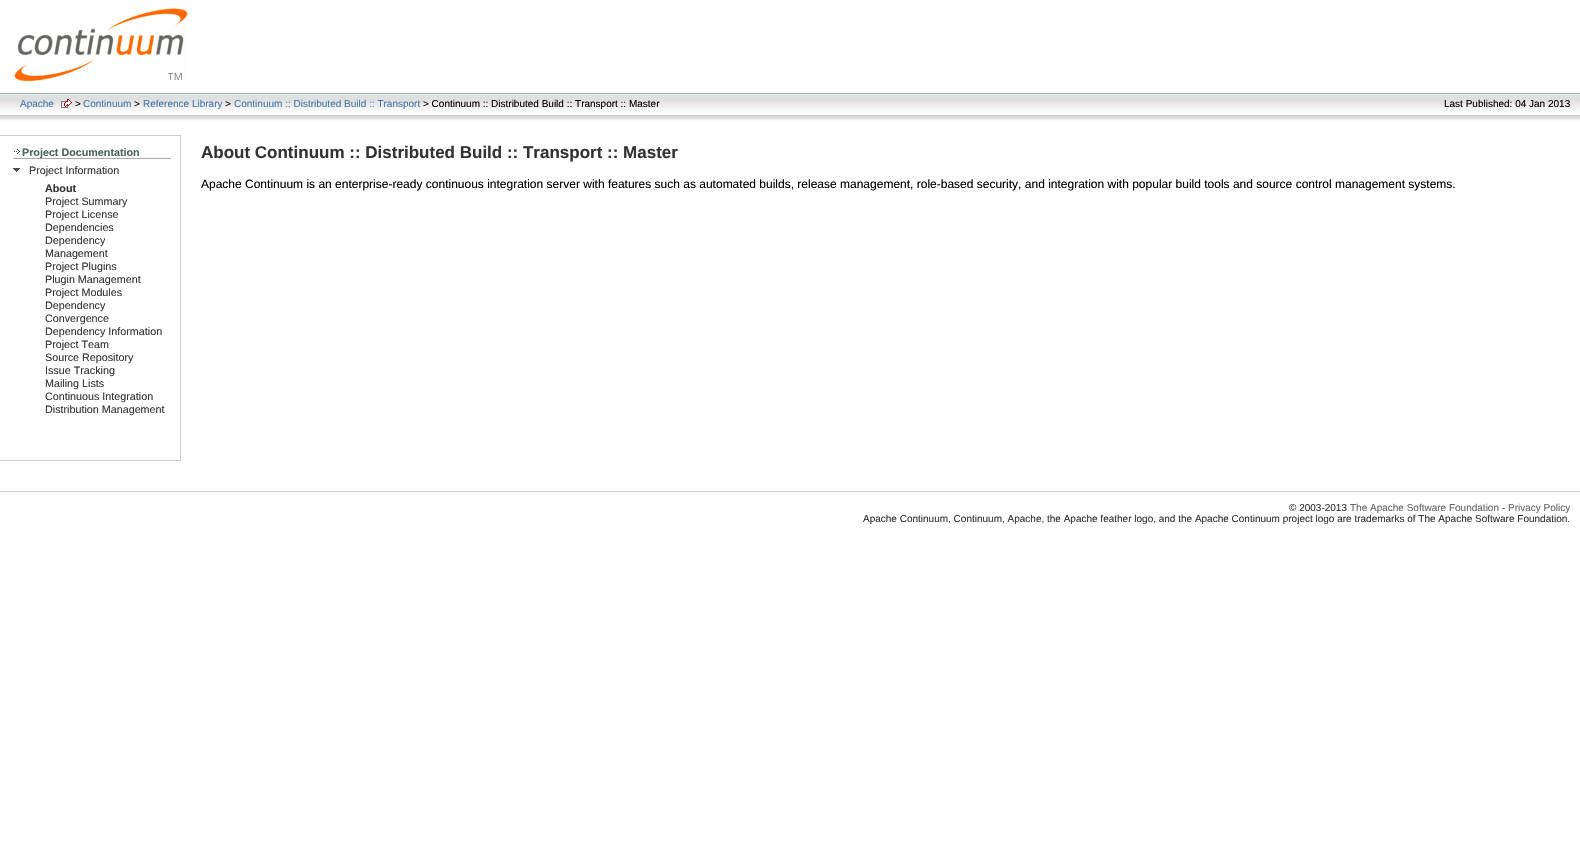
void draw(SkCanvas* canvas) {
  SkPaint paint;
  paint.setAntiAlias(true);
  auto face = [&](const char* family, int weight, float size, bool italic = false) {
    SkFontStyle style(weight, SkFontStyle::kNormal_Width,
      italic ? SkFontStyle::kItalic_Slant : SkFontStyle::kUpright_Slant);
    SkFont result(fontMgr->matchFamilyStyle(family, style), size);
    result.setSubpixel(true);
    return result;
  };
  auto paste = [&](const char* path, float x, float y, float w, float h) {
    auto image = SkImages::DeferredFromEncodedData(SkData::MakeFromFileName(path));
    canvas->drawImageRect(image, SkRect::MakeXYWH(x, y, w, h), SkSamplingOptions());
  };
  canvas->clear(0xffffffff);
  paste("img/1.png", 14, 8, 174, 73);
  paste("img/2.png", 0, 93, 1580, 28);
  paste("img/3.png", 61, 99, 11, 9);
  {
    const struct { float x, y, w, h; SkColor color; } items[] = {
      {0, 135, 181, 1, 0xffcccccc},
      {180, 135, 1, 326, 0xffcccccc},
      {0, 460, 181, 1, 0xffcccccc},
    };
    for (auto [x, y, w, h, color] : items) {
      paint.setColor(color);
      canvas->drawRect(SkRect::MakeXYWH(x, y, w, h), paint);
    }
  }
  paste("img/4.png", 13, 148, 8, 8);
  paint.setColor(0xffaaaaaa);
  canvas->drawRect(SkRect::MakeXYWH(13, 158, 158, 1), paint);
  paste("img/5.png", 13, 168, 7, 4);
  paint.setColor(0xffcccccc);
  canvas->drawRect(SkRect::MakeXYWH(0, 491, 1580, 1), paint);
  auto f0 = face("Liberation Sans", 400, 10);
  paint.setColor(0xff4477aa);
  canvas->drawString("Apache", 20, 107, f0, paint);
  paint.setColor(0xff000000);
  canvas->drawString(">", 75, 107, f0, paint);
  paint.setColor(0xff4477aa);
  canvas->drawString("Continuum", 83, 107, f0, paint);
  paint.setColor(0xff000000);
  canvas->drawString(">", 134, 107, f0, paint);
  paint.setColor(0xff4477aa);
  canvas->drawString("Reference Library", 143, 107, f0, paint);
  paint.setColor(0xff000000);
  canvas->drawString(">", 225, 107, f0, paint);
  paint.setColor(0xff4477aa);
  canvas->drawString("Continuum :: Distributed Build :: Transport", 234, 107, f0, paint);
  paint.setColor(0xff000000);
  canvas->drawString("> Continuum :: Distributed Build :: Transport :: Master", 423, 107, f0, paint);
  canvas->drawString("Last Published: 04 Jan 2013", 1444, 107, f0, paint);
  auto f1 = face("Liberation Sans", 700, 10.75f);
  paint.setColor(0xff49635a);
  canvas->drawString("Project Documentation", 22, 156, f1, paint);
  auto f2 = face("Liberation Sans", 400, 10.75f);
  paint.setColor(0xff333333);
  canvas->drawString("Project Information", 29, 174, f2, paint);
  canvas->drawString("About", 45, 192, f1, paint);
  {
    const struct { const char* s; float x, y; } items[] = {
      {"Project Summary", 45, 205},
      {"Project License", 45, 218},
      {"Dependencies", 45, 231},
      {"Dependency", 45, 244},
      {"Management", 45, 257},
      {"Project Plugins", 45, 270},
      {"Plugin Management", 45, 283},
      {"Project Modules", 45, 296},
      {"Dependency", 45, 309},
      {"Convergence", 45, 322},
      {"Dependency Information", 45, 335},
      {"Project Team", 45, 348},
      {"Source Repository", 45, 361},
      {"Issue Tracking", 45, 374},
      {"Mailing Lists", 45, 387},
      {"Continuous Integration", 45, 400},
      {"Distribution Management", 45, 413},
    };
    for (auto [s, x, y] : items) {
      canvas->drawString(s, x, y, f2, paint);
    }
  }
  auto f3 = face("Liberation Sans", 700, 17);
  canvas->drawString("About Continuum :: Distributed Build :: Transport :: Master", 201, 158, f3, paint);
  auto f4 = face("Liberation Sans", 400, 12);
  paint.setColor(0xff000000);
  canvas->drawString("Apache Continuum is an enterprise-ready continuous integration server with features such as automated builds, release management, role-based security, and integration with popular build tools and source control management systems.", 201, 188, f4, paint);
  paint.setColor(0xff333333);
  canvas->drawString("© 2003-2013", 1289, 511, f0, paint);
  paint.setColor(0xff666666);
  canvas->drawString("The Apache Software Foundation", 1350, 511, f0, paint);
  paint.setColor(0xff333333);
  canvas->drawString("-", 1502, 511, f0, paint);
  paint.setColor(0xff666666);
  canvas->drawString("Privacy Policy", 1508, 511, f0, paint);
  paint.setColor(0xff333333);
  canvas->drawString("Apache Continuum, Continuum, Apache, the Apache feather logo, and the Apache Continuum project logo are trademarks of The Apache Software Foundation.", 863, 522, f0, paint);
}
